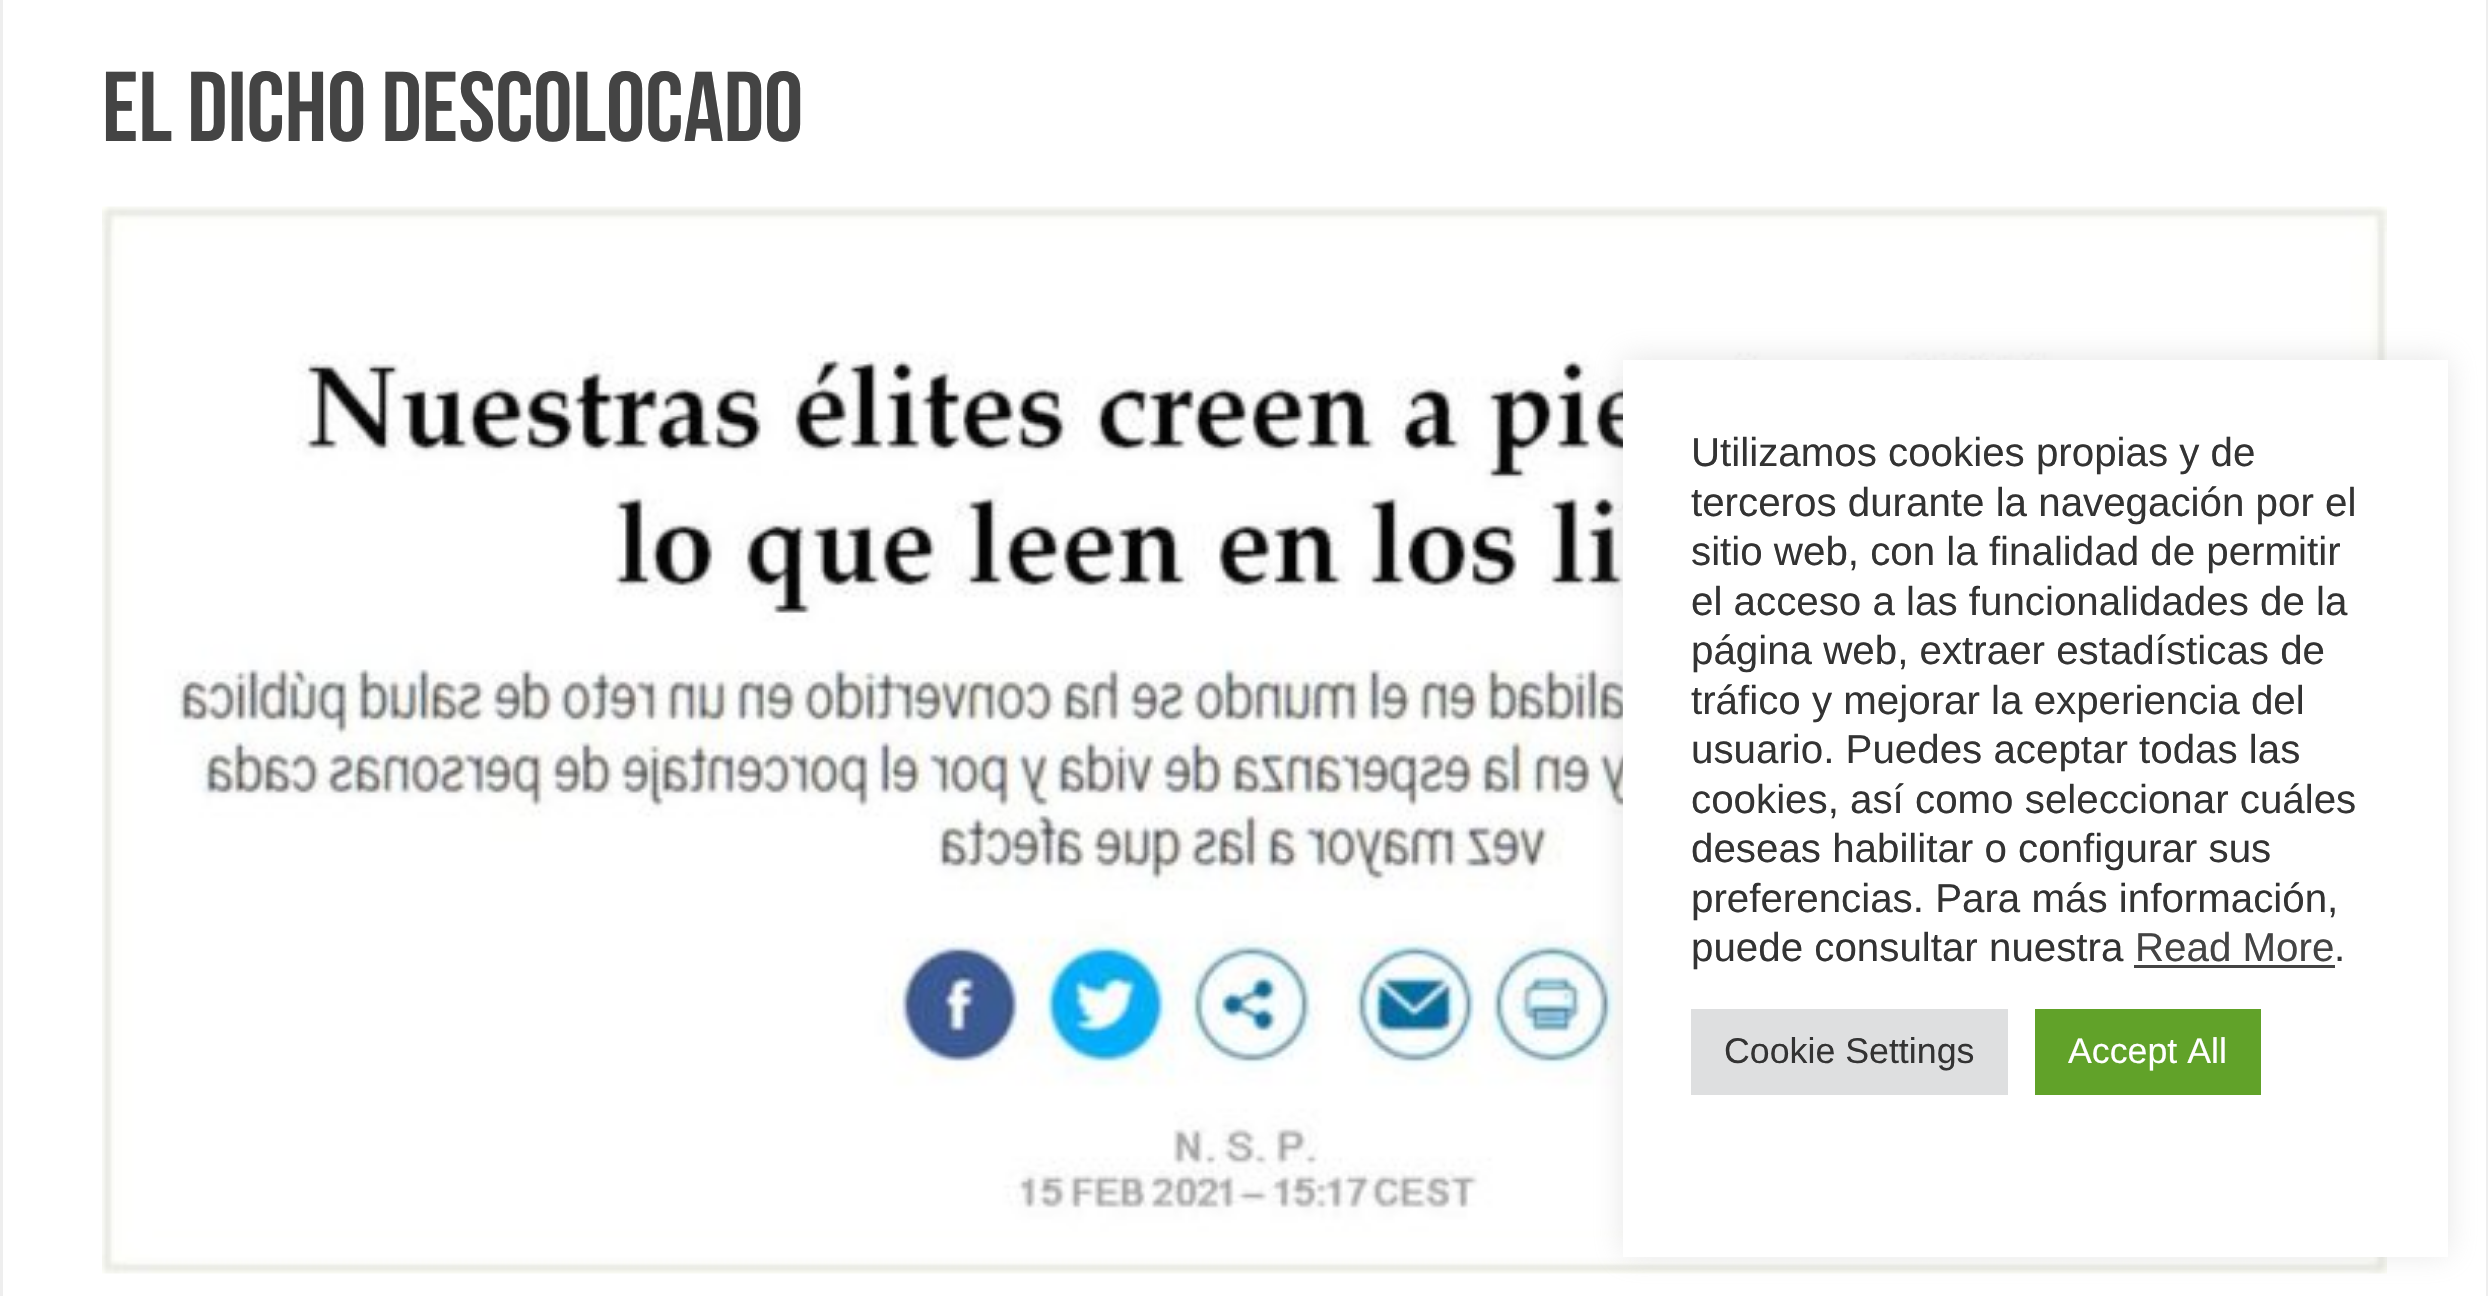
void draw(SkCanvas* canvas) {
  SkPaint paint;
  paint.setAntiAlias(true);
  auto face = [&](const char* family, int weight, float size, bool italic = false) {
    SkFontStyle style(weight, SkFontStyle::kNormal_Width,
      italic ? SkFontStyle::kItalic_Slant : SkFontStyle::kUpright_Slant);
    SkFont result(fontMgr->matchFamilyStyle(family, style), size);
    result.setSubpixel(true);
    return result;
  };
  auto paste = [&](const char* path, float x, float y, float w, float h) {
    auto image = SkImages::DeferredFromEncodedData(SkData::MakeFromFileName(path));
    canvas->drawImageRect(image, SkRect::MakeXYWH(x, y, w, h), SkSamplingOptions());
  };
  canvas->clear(0xffffffff);
  paint.setStroke(true);
  paint.setStrokeWidth(3);
  paint.setColor(0xffeeeeee);
  canvas->drawRect(SkRect::MakeXYWH(1.5f, -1.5f, 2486, 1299), paint);
  paste("img/1.png", 102, 206, 2285, 1068);
  paint.setStroke(false);
  paint.setColor(0x4dacabab);
  paint.setMaskFilter(SkMaskFilter::MakeBlur(kNormal_SkBlurStyle, 14));
  canvas->drawRect(SkRect::MakeXYWH(1623, 358, 825, 896), paint);
  paint.setMaskFilter(nullptr);
  {
    const struct { float x, y, w, h; SkColor color; } items[] = {
      {1623, 360, 825, 897, 0xffffffff},
      {2134, 965, 201, 3, 0xff444444},
      {1691, 1009, 317, 86, 0xffdedfe0},
      {2035, 1009, 226, 86, 0xff61a229},
    };
    for (auto [x, y, w, h, color] : items) {
      paint.setColor(color);
      canvas->drawRect(SkRect::MakeXYWH(x, y, w, h), paint);
    }
  }
  auto f0 = face("Bebas Neue", 400, 99);
  paint.setColor(0xff444444);
  canvas->drawString("El dicho descolocado", 102, 141, f0, paint);
  auto f1 = face("Liberation Sans", 400, 40.3f);
  paint.setColor(0xff333333);
  {
    const struct { const char* s; float x, y; } items[] = {
      {"Utilizamos cookies propias y de", 1691, 466},
      {"terceros durante la navegación por el", 1691, 516},
      {"sitio web, con la finalidad de permitir", 1691, 565},
      {"el acceso a las funcionalidades de la", 1691, 615},
      {"página web, extraer estadísticas de", 1691, 664},
      {"tráfico y mejorar la experiencia del", 1691, 714},
      {"usuario. Puedes aceptar todas las", 1691, 763},
      {"cookies, así como seleccionar cuáles", 1691, 813},
      {"deseas habilitar o configurar sus", 1691, 862},
      {"preferencias. Para más información,", 1691, 912},
      {"puede consultar nuestra", 1691, 961},
    };
    for (auto [s, x, y] : items) {
      canvas->drawString(s, x, y, f1, paint);
    }
  }
  paint.setColor(0xff444444);
  canvas->drawString("Read More", 2135, 961, f1, paint);
  paint.setColor(0xff333333);
  canvas->drawString(".", 2334, 961, f1, paint);
  auto f2 = face("Liberation Sans", 400, 35.75f);
  canvas->drawString("Cookie Settings", 1724, 1063, f2, paint);
  paint.setColor(0xffffffff);
  canvas->drawString("Accept All", 2068, 1063, f2, paint);
}
